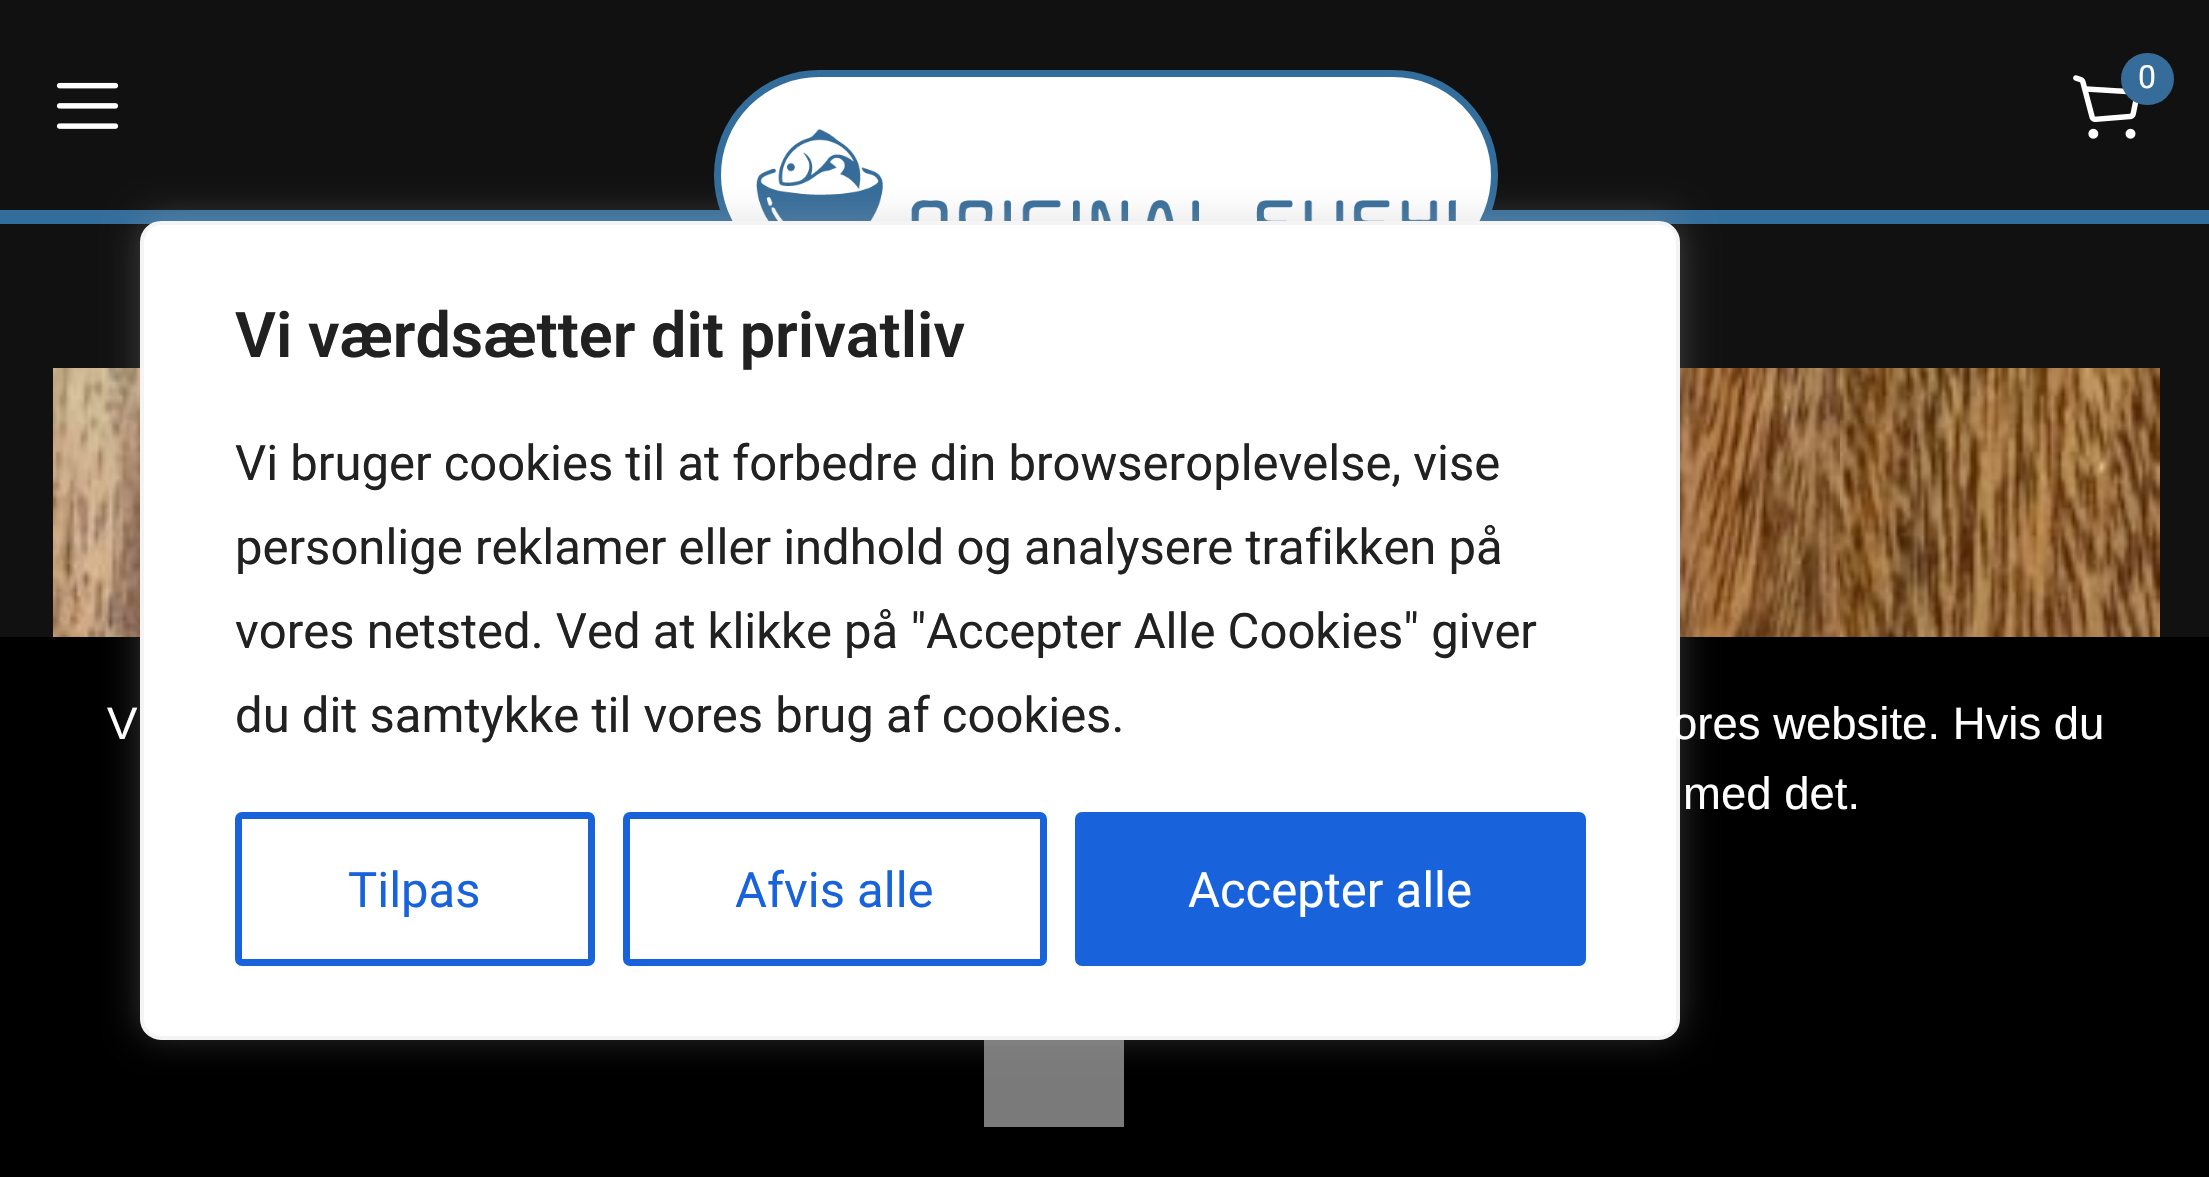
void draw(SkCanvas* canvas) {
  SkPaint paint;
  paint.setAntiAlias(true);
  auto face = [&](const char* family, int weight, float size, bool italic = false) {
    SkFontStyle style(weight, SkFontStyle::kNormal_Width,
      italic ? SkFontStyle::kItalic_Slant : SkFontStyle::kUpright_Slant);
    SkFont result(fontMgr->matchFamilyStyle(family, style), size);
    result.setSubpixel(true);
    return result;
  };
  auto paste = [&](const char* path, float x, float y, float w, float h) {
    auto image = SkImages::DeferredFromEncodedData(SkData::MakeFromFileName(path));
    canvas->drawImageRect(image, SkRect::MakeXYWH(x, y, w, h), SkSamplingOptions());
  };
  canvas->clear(0xff111111);
  paint.setColor(0xff336d9b);
  canvas->drawRect(SkRect::MakeXYWH(0, 210, 2209, 14), paint);
  paste("img/1.png", 56, 82, 63, 47);
  paint.setColor(0xffffffff);
  canvas->drawRoundRect(SkRect::MakeXYWH(717.5f, 73.5f, 777, 203), 101.5f, 101.5f, paint);
  paint.setStroke(true);
  paint.setStrokeWidth(7);
  paint.setColor(0xff336d9b);
  canvas->drawRoundRect(SkRect::MakeXYWH(717.5f, 73.5f, 777, 203), 101.5f, 101.5f, paint);
  paste("img/2.png", 756, 129, 700, 92);
  paste("img/3.png", 2073, 75, 66, 64);
  paint.setStroke(false);
  paint.setColor(0xff356c99);
  canvas->drawRoundRect(SkRect::MakeXYWH(2121, 53, 53, 52), 26, 26, paint);
  paste("img/4.png", 53, 368, 2107, 269);
  paint.setColor(0xff000000);
  canvas->drawRect(SkRect::MakeXYWH(0, 637, 2209, 540), paint);
  paint.setColor(0x80f3f3f3);
  canvas->drawRect(SkRect::MakeXYWH(984, 1040, 140, 87), paint);
  paint.setColor(0x4dacabab);
  paint.setMaskFilter(SkMaskFilter::MakeBlur(kNormal_SkBlurStyle, 17.5f));
  canvas->drawRoundRect(SkRect::MakeXYWH(140, 217, 1540, 819), 21, 21, paint);
  paint.setMaskFilter(nullptr);
  paint.setColor(0xffffffff);
  canvas->drawRoundRect(SkRect::MakeXYWH(142, 223, 1536, 815), 19, 19, paint);
  paint.setStroke(true);
  paint.setStrokeWidth(4);
  paint.setColor(0xfff4f4f4);
  canvas->drawRoundRect(SkRect::MakeXYWH(142, 223, 1536, 815), 19, 19, paint);
  paint.setStrokeWidth(7);
  paint.setColor(0xff1863dc);
  canvas->drawRoundRect(SkRect::MakeXYWH(238.5f, 815.5f, 353, 147), 3.5f, 3.5f, paint);
  canvas->drawRoundRect(SkRect::MakeXYWH(626.5f, 815.5f, 417, 147), 3.5f, 3.5f, paint);
  paint.setStroke(false);
  canvas->drawRoundRect(SkRect::MakeXYWH(1078.5f, 815.5f, 504, 147), 3.5f, 3.5f, paint);
  paint.setStroke(true);
  canvas->drawRoundRect(SkRect::MakeXYWH(1078.5f, 815.5f, 504, 147), 3.5f, 3.5f, paint);
  auto f0 = face("Roboto", 400, 32);
  paint.setStroke(false);
  paint.setColor(0xffffffff);
  canvas->drawString("0", 2138, 88, f0, paint);
  auto f1 = face("Roboto", 600, 63);
  paint.setColor(0xff212121);
  canvas->drawString("Vi værdsætter dit privatliv", 235, 357, f1, paint);
  auto f2 = face("Roboto", 400, 49);
  {
    const struct { const char* s; float x, y; } items[] = {
      {"Vi bruger cookies til at forbedre din browseroplevelse, vise", 235, 480},
      {"personlige reklamer eller indhold og analysere trafikken på", 235, 564},
      {"vores netsted. Ved at klikke på \"Accepter Alle Cookies\" giver", 235, 648},
      {"du dit samtykke til vores brug af cookies.", 235, 732},
    };
    for (auto [s, x, y] : items) {
      canvas->drawString(s, x, y, f2, paint);
    }
  }
  paint.setColor(0xff1863dc);
  canvas->drawString("Tilpas", 348, 907, f2, paint);
  canvas->drawString("Afvis alle", 735, 907, f2, paint);
  paint.setColor(0xffffffff);
  canvas->drawString("Accepter alle", 1188, 907, f2, paint);
  auto f3 = face("Liberation Sans", 400, 45.5f);
  {
    const struct { const char* s; float x, y; } items[] = {
      {"V", 107, 739},
      {"ores website. Hvis du", 1672, 739},
      {"med det.", 1683, 809},
    };
    for (auto [s, x, y] : items) {
      canvas->drawString(s, x, y, f3, paint);
    }
  }
}
